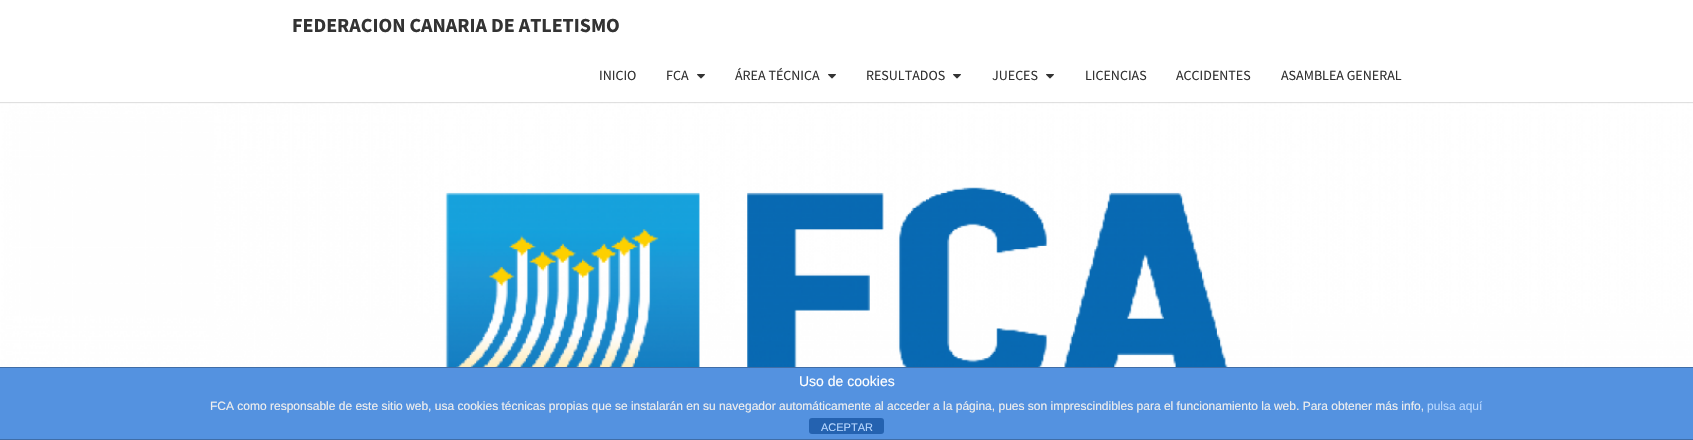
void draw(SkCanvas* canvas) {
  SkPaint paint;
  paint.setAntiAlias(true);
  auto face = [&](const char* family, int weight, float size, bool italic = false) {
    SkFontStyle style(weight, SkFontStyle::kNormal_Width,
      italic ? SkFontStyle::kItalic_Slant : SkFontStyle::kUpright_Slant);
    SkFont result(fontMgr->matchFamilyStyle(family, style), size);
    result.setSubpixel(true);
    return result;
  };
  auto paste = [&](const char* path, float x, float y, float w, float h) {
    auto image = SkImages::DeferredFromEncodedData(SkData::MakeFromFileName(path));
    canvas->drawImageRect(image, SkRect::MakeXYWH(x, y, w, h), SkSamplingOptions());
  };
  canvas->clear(0xffffffff);
  paste("img/2.png", 0, 102, 1693, 265);
  paint.setColor(0x33646464);
  paint.setMaskFilter(SkMaskFilter::MakeBlur(kNormal_SkBlurStyle, 0.5f));
  canvas->drawRect(SkRect::MakeXYWH(0, 1, 1693, 102), paint);
  paint.setMaskFilter(nullptr);
  paint.setColor(0xffffffff);
  canvas->drawRect(SkRect::MakeXYWH(0, 0, 1693, 102), paint);
  paste("img/1.png", 697, 74, 8, 5);
  paste("img/1.png", 828, 74, 8, 5);
  paste("img/1.png", 953, 74, 8, 5);
  paste("img/1.png", 1046, 74, 8, 5);
  {
    const struct { float x, y, w, h; SkColor color; } items[] = {
      {0, 368, 1693, 71, 0xff5492e0},
      {0, 367, 1693, 1, 0xff3f6da7},
      {0, 439, 1693, 1, 0xff3f6da7},
    };
    for (auto [x, y, w, h, color] : items) {
      paint.setColor(color);
      canvas->drawRect(SkRect::MakeXYWH(x, y, w, h), paint);
    }
  }
  paint.setColor(0xff2462b0);
  canvas->drawRoundRect(SkRect::MakeXYWH(809, 418, 75, 16), 3, 3, paint);
  auto f0 = face("Source Sans Pro", 700, 20);
  paint.setColor(0xff333333);
  canvas->drawString("FEDERACION CANARIA DE ATLETISMO", 292, 32, f0, paint);
  auto f1 = face("Source Sans Pro", 400, 14);
  {
    const struct { const char* s; float x, y; } items[] = {
      {"INICIO", 599, 80},
      {"FCA", 666, 80},
      {"ÁREA TÉCNICA", 735, 80},
      {"RESULTADOS", 866, 80},
      {"JUECES", 992, 80},
      {"LICENCIAS", 1085, 80},
      {"ACCIDENTES", 1176, 80},
      {"ASAMBLEA GENERAL", 1281, 80},
    };
    for (auto [s, x, y] : items) {
      canvas->drawString(s, x, y, f1, paint);
    }
  }
  auto f2 = face("Liberation Sans", 400, 14);
  paint.setColor(0xffffffff);
  canvas->drawString("Uso de cookies", 799, 386, f2, paint);
  auto f3 = face("Liberation Sans", 400, 12);
  paint.setColor(0xffeeeeee);
  canvas->drawString("FCA como responsable de este sitio web, usa cookies técnicas propias que se instalarán en su navegador automáticamente al acceder a la página, pues son imprescindibles para el funcionamiento la web. Para obtener más info,", 210, 410, f3, paint);
  paint.setColor(0xffb7d7ff);
  canvas->drawString("pulsa aquí", 1427, 410, f3, paint);
  auto f4 = face("Liberation Sans", 400, 11);
  canvas->drawString("ACEPTAR", 821, 431, f4, paint);
}
